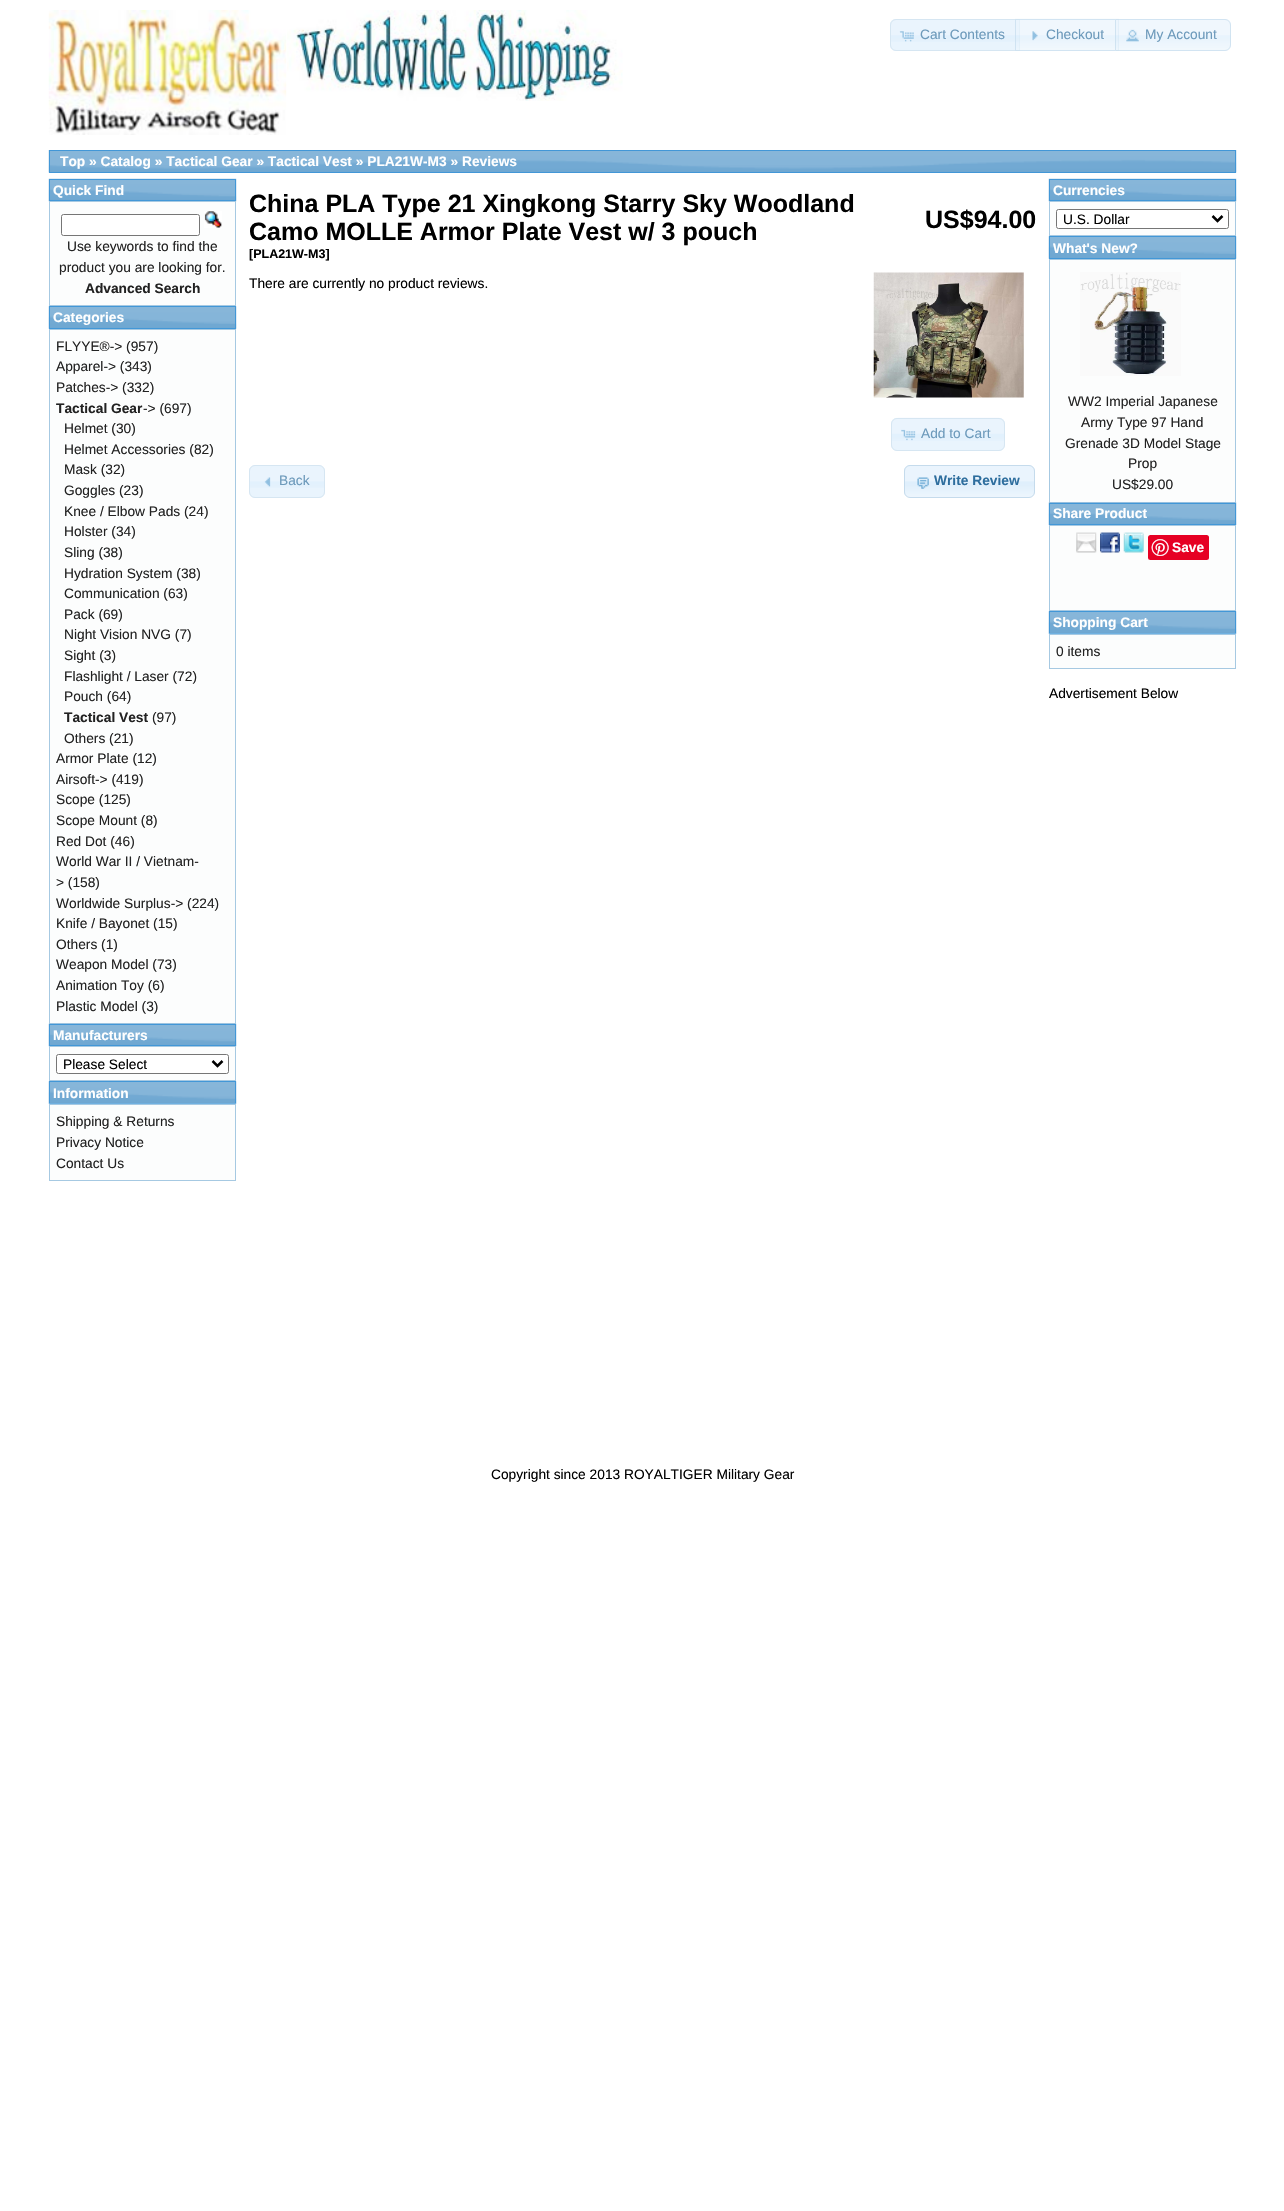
void draw(SkCanvas* canvas) {
  SkPaint paint;
  paint.setAntiAlias(true);
  auto face = [&](const char* family, int weight, float size, bool italic = false) {
    SkFontStyle style(weight, SkFontStyle::kNormal_Width,
      italic ? SkFontStyle::kItalic_Slant : SkFontStyle::kUpright_Slant);
    SkFont result(fontMgr->matchFamilyStyle(family, style), size);
    result.setSubpixel(true);
    return result;
  };
  auto paste = [&](const char* path, float x, float y, float w, float h) {
    auto image = SkImages::DeferredFromEncodedData(SkData::MakeFromFileName(path));
    canvas->drawImageRect(image, SkRect::MakeXYWH(x, y, w, h), SkSamplingOptions());
  };
  auto shape = [&](const char* data, bool evenOdd = false) {
    SkPath result = *SkParsePath::FromSVGString(data);
    if (evenOdd) result.setFillType(SkPathFillType::kEvenOdd);
    return result;
  };
  canvas->clear(0xffffffff);
  paste("img/1.png", 48, 10, 239, 125);
  paste("img/2.png", 287, 10, 336, 91);
  paint.setColor(0xffe9f4fd);
  canvas->drawPath(shape("M896 19H1020V51H896C892.5 51 890 48.5 890 45V25C890 21.5 892.5 19 896 19Z"), paint);
  paste("img/3.png", 890, 19, 129, 23);
  paint.setStroke(true);
  paint.setStrokeWidth(1);
  paint.setColor(0xffd6e6f2);
  canvas->drawPath(shape("M896 19.5H1019.5V50.5H896C893 50.5 890.5 48 890.5 45V25C890.5 22 893 19.5 896 19.5Z"), paint);
  paste("img/4.png", 899, 31, 15, 11);
  paste("img/5.png", 1015, 18, 104, 33);
  paint.setColor(0xb3c5dbec);
  canvas->drawRect(SkRect::MakeXYWH(1015.5f, 19.5f, 103, 31), paint);
  paste("img/6.png", 1032, 31, 6, 10);
  paste("img/7.png", 1115, 19, 116, 32);
  canvas->drawPath(shape("M1115.5 19.5H1225C1228 19.5 1230.5 22 1230.5 25V45C1230.5 48 1228 50.5 1225 50.5H1115.5Z"), paint);
  paste("img/8.png", 1126, 29, 13, 13);
  paste("img/9.png", 48, 150, 1189, 23);
  paint.setColor(0xff4297d7);
  canvas->drawRect(SkRect::MakeXYWH(49.5f, 150.5f, 1186, 22), paint);
  paste("img/10.png", 48, 178, 189, 24);
  canvas->drawRect(SkRect::MakeXYWH(49.5f, 179.5f, 186, 21), paint);
  paint.setStroke(false);
  paint.setColor(0xfffcfdfd);
  canvas->drawRect(SkRect::MakeXYWH(49.5f, 201.5f, 186, 104), paint);
  paint.setStroke(true);
  paint.setColor(0xffa6c9e2);
  canvas->drawRect(SkRect::MakeXYWH(49.5f, 201.5f, 186, 104), paint);
  paint.setStroke(false);
  paint.setColor(0xffffffff);
  canvas->drawRoundRect(SkRect::MakeXYWH(61.5f, 214.5f, 138, 21), 2, 2, paint);
  paint.setStroke(true);
  paint.setColor(0xff767676);
  canvas->drawRoundRect(SkRect::MakeXYWH(61.5f, 214.5f, 138, 21), 2, 2, paint);
  paste("img/11.png", 204, 211, 18, 17);
  paste("img/12.png", 48, 306, 189, 23);
  paint.setColor(0xff4297d7);
  canvas->drawRect(SkRect::MakeXYWH(49.5f, 306.5f, 186, 22), paint);
  paint.setStroke(false);
  paint.setColor(0xfffcfdfd);
  canvas->drawRect(SkRect::MakeXYWH(49.5f, 329.5f, 186, 694), paint);
  paint.setStroke(true);
  paint.setColor(0xffa6c9e2);
  canvas->drawRect(SkRect::MakeXYWH(49.5f, 329.5f, 186, 694), paint);
  paste("img/13.png", 48, 1023, 189, 24);
  paint.setColor(0xff4297d7);
  canvas->drawRect(SkRect::MakeXYWH(49.5f, 1024.5f, 186, 21), paint);
  paint.setStroke(false);
  paint.setColor(0xfffcfdfd);
  canvas->drawRect(SkRect::MakeXYWH(49.5f, 1046.5f, 186, 34), paint);
  paint.setStroke(true);
  paint.setColor(0xffa6c9e2);
  canvas->drawRect(SkRect::MakeXYWH(49.5f, 1046.5f, 186, 34), paint);
  paint.setStroke(false);
  paint.setColor(0xffffffff);
  canvas->drawRoundRect(SkRect::MakeXYWH(56.5f, 1054.5f, 172, 19), 2, 2, paint);
  paint.setStroke(true);
  paint.setColor(0xff767676);
  canvas->drawRoundRect(SkRect::MakeXYWH(56.5f, 1054.5f, 172, 19), 2, 2, paint);
  paint.setStrokeWidth(2.5f);
  paint.setColor(0xff000000);
  canvas->drawPath(shape("M212.5 1061L217.5 1066L222.5 1061"), paint);
  paste("img/12.png", 48, 1081, 189, 23);
  paint.setStrokeWidth(1);
  paint.setColor(0xff4297d7);
  canvas->drawRect(SkRect::MakeXYWH(49.5f, 1081.5f, 186, 22), paint);
  paint.setStroke(false);
  paint.setColor(0xfffcfdfd);
  canvas->drawRect(SkRect::MakeXYWH(49.5f, 1104.5f, 186, 76), paint);
  paint.setStroke(true);
  paint.setColor(0xffa6c9e2);
  canvas->drawRect(SkRect::MakeXYWH(49.5f, 1104.5f, 186, 76), paint);
  paint.setStroke(false);
  paint.setColor(0xff70b0e0);
  canvas->drawRect(SkRect::MakeXYWH(49, 1103, 187, 1), paint);
  paste("img/14.png", 873, 272, 151, 126);
  paint.setColor(0xffe9f4fd);
  canvas->drawRoundRect(SkRect::MakeXYWH(891, 418, 114, 33), 6, 6, paint);
  paste("img/15.png", 891, 417, 114, 24);
  paint.setStroke(true);
  paint.setColor(0xffd6e6f2);
  canvas->drawRoundRect(SkRect::MakeXYWH(891.5f, 418.5f, 113, 32), 5.5f, 5.5f, paint);
  paste("img/16.png", 901, 429, 15, 12);
  paint.setStroke(false);
  paint.setColor(0xffe9f4fd);
  canvas->drawRoundRect(SkRect::MakeXYWH(249, 465, 76, 33), 6, 6, paint);
  paste("img/17.png", 249, 468, 76, 20);
  paint.setStroke(true);
  paint.setColor(0xffd6e6f2);
  canvas->drawRoundRect(SkRect::MakeXYWH(249.5f, 465.5f, 75, 32), 5.5f, 5.5f, paint);
  paste("img/18.png", 264, 477, 7, 10);
  paste("img/19.png", 904, 465, 131, 33);
  paint.setColor(0xffc5dbec);
  canvas->drawRoundRect(SkRect::MakeXYWH(904.5f, 465.5f, 130, 32), 5.5f, 5.5f, paint);
  paste("img/20.png", 917, 477, 12, 12);
  paste("img/10.png", 1048, 178, 189, 24);
  paint.setColor(0xff4297d7);
  canvas->drawRect(SkRect::MakeXYWH(1049.5f, 179.5f, 186, 21), paint);
  paint.setStroke(false);
  paint.setColor(0xfffcfdfd);
  canvas->drawRect(SkRect::MakeXYWH(1049.5f, 201.5f, 186, 34), paint);
  paint.setStroke(true);
  paint.setColor(0xffa6c9e2);
  canvas->drawRect(SkRect::MakeXYWH(1049.5f, 201.5f, 186, 34), paint);
  paint.setStroke(false);
  paint.setColor(0xffffffff);
  canvas->drawRoundRect(SkRect::MakeXYWH(1056.5f, 209.5f, 172, 19), 2, 2, paint);
  paint.setStroke(true);
  paint.setColor(0xff767676);
  canvas->drawRoundRect(SkRect::MakeXYWH(1056.5f, 209.5f, 172, 19), 2, 2, paint);
  paint.setStrokeWidth(2.5f);
  paint.setColor(0xff000000);
  canvas->drawPath(shape("M1212.5 216L1217.5 221L1222.5 216"), paint);
  paste("img/12.png", 1048, 236, 189, 23);
  paint.setStrokeWidth(1);
  paint.setColor(0xff4297d7);
  canvas->drawRect(SkRect::MakeXYWH(1049.5f, 236.5f, 186, 22), paint);
  paint.setStroke(false);
  paint.setColor(0xfffcfdfd);
  canvas->drawRect(SkRect::MakeXYWH(1049.5f, 259.5f, 186, 243), paint);
  paint.setStroke(true);
  paint.setColor(0xffa6c9e2);
  canvas->drawRect(SkRect::MakeXYWH(1049.5f, 259.5f, 186, 243), paint);
  paste("img/21.png", 1080, 272, 101, 104);
  paste("img/22.png", 1048, 502, 189, 23);
  paint.setColor(0xff4297d7);
  canvas->drawRect(SkRect::MakeXYWH(1049.5f, 503.5f, 186, 21), paint);
  paint.setStroke(false);
  paint.setColor(0xfffcfdfd);
  canvas->drawRect(SkRect::MakeXYWH(1049.5f, 525.5f, 186, 85), paint);
  paint.setStroke(true);
  paint.setColor(0xffa6c9e2);
  canvas->drawRect(SkRect::MakeXYWH(1049.5f, 525.5f, 186, 85), paint);
  paste("img/23.png", 1076, 532, 21, 21);
  paste("img/24.png", 1100, 532, 20, 21);
  paste("img/25.png", 1123, 532, 21, 21);
  paint.setStroke(false);
  paint.setColor(0xffe60023);
  canvas->drawRoundRect(SkRect::MakeXYWH(1148, 535, 61, 25), 2.5f, 2.5f, paint);
  paste("img/26.png", 1151, 539, 18, 17);
  paste("img/12.png", 1048, 611, 189, 23);
  paint.setStroke(true);
  paint.setColor(0xff4297d7);
  canvas->drawRect(SkRect::MakeXYWH(1049.5f, 611.5f, 186, 22), paint);
  paint.setStroke(false);
  paint.setColor(0xfffcfdfd);
  canvas->drawRect(SkRect::MakeXYWH(1049.5f, 634.5f, 186, 34), paint);
  paint.setStroke(true);
  paint.setColor(0xffa6c9e2);
  canvas->drawRect(SkRect::MakeXYWH(1049.5f, 634.5f, 186, 34), paint);
  paint.setStroke(false);
  paint.setColor(0xff70b1e1);
  canvas->drawRect(SkRect::MakeXYWH(1049, 633, 187, 1), paint);
  auto f0 = face("Liberation Sans", 400, 13.75f);
  paint.setColor(0xff6d9abb);
  {
    const struct { const char* s; float x, y; } items[] = {
      {"Cart Contents", 920, 39},
      {"Checkout", 1046, 39},
      {"My Account", 1145, 39},
    };
    for (auto [s, x, y] : items) {
      canvas->drawString(s, x, y, f0, paint);
    }
  }
  auto f1 = face("Liberation Sans", 700, 13.75f);
  paint.setColor(0xffffffff);
  canvas->drawString("Top » Catalog » Tactical Gear » Tactical Vest » PLA21W-M3 » Reviews", 60, 166, f1, paint);
  canvas->drawString("Quick Find", 53, 195, f1, paint);
  paint.setColor(0xff222222);
  canvas->drawString("Use keywords to find the", 67, 251, f0, paint);
  canvas->drawString("product you are looking for.", 59, 272, f0, paint);
  canvas->drawString("Advanced Search", 85, 293, f1, paint);
  paint.setColor(0xffffffff);
  canvas->drawString("Categories", 53, 322, f1, paint);
  paint.setColor(0xff222222);
  {
    const struct { const char* s; float x, y; } items[] = {
      {"FLYYE®-> (957)", 56, 351},
      {"Apparel-> (343)", 56, 371},
      {"Patches-> (332)", 56, 392},
    };
    for (auto [s, x, y] : items) {
      canvas->drawString(s, x, y, f0, paint);
    }
  }
  canvas->drawString("Tactical Gear", 56, 413, f1, paint);
  {
    const struct { const char* s; float x, y; } items[] = {
      {"-> (697)", 143, 413},
      {"Helmet (30)", 64, 433},
      {"Helmet Accessories (82)", 64, 454},
      {"Mask (32)", 64, 474},
      {"Goggles (23)", 64, 495},
      {"Knee / Elbow Pads (24)", 64, 516},
      {"Holster (34)", 64, 536},
      {"Sling (38)", 64, 557},
      {"Hydration System (38)", 64, 578},
      {"Communication (63)", 64, 598},
      {"Pack (69)", 64, 619},
      {"Night Vision NVG (7)", 64, 639},
      {"Sight (3)", 64, 660},
      {"Flashlight / Laser (72)", 64, 681},
      {"Pouch (64)", 64, 701},
    };
    for (auto [s, x, y] : items) {
      canvas->drawString(s, x, y, f0, paint);
    }
  }
  canvas->drawString("Tactical Vest", 64, 722, f1, paint);
  {
    const struct { const char* s; float x, y; } items[] = {
      {"(97)", 152, 722},
      {"Others (21)", 64, 743},
      {"Armor Plate (12)", 56, 763},
      {"Airsoft-> (419)", 56, 784},
      {"Scope (125)", 56, 804},
      {"Scope Mount (8)", 56, 825},
      {"Red Dot (46)", 56, 846},
      {"World War II / Vietnam-", 56, 866},
      {"> (158)", 56, 887},
      {"Worldwide Surplus-> (224)", 56, 908},
      {"Knife / Bayonet (15)", 56, 928},
      {"Others (1)", 56, 949},
      {"Weapon Model (73)", 56, 969},
      {"Animation Toy (6)", 56, 990},
      {"Plastic Model (3)", 56, 1011},
    };
    for (auto [s, x, y] : items) {
      canvas->drawString(s, x, y, f0, paint);
    }
  }
  paint.setColor(0xffffffff);
  canvas->drawString("Manufacturers", 53, 1040, f1, paint);
  paint.setColor(0xff000000);
  canvas->drawString("Please Select", 63, 1069, f0, paint);
  paint.setColor(0xffffffff);
  canvas->drawString("Information", 53, 1098, f1, paint);
  paint.setColor(0xff222222);
  {
    const struct { const char* s; float x, y; } items[] = {
      {"Shipping & Returns", 56, 1126},
      {"Privacy Notice", 56, 1147},
      {"Contact Us", 56, 1168},
    };
    for (auto [s, x, y] : items) {
      canvas->drawString(s, x, y, f0, paint);
    }
  }
  auto f2 = face("Liberation Sans", 700, 25);
  paint.setColor(0xff000000);
  canvas->drawString("China PLA Type 21 Xingkong Starry Sky Woodland", 249, 212, f2, paint);
  canvas->drawString("Camo MOLLE Armor Plate Vest w/ 3 pouch", 249, 240, f2, paint);
  auto f3 = face("Liberation Sans", 700, 12.5f);
  canvas->drawString("[PLA21W-M3]", 249, 258, f3, paint);
  canvas->drawString("US$94.00", 925, 228, f2, paint);
  canvas->drawString("There are currently no product reviews.", 249, 288, f0, paint);
  paint.setColor(0xff6d9abb);
  canvas->drawString("Add to Cart", 921, 438, f0, paint);
  canvas->drawString("Back", 279, 485, f0, paint);
  paint.setColor(0xff2e6e9e);
  canvas->drawString("Write Review", 934, 485, f1, paint);
  paint.setColor(0xffffffff);
  canvas->drawString("Currencies", 1053, 195, f1, paint);
  paint.setColor(0xff000000);
  canvas->drawString("U.S. Dollar", 1063, 224, f0, paint);
  paint.setColor(0xffffffff);
  canvas->drawString("What's New?", 1053, 253, f1, paint);
  paint.setColor(0xff222222);
  {
    const struct { const char* s; float x, y; } items[] = {
      {"WW2 Imperial Japanese", 1068, 406},
      {"Army Type 97 Hand", 1081, 427},
      {"Grenade 3D Model Stage", 1065, 448},
      {"Prop", 1128, 468},
      {"US$29.00", 1112, 489},
    };
    for (auto [s, x, y] : items) {
      canvas->drawString(s, x, y, f0, paint);
    }
  }
  paint.setColor(0xffffffff);
  {
    const struct { const char* s; float x, y; } items[] = {
      {"Share Product", 1053, 518},
      {"Save", 1172, 552},
      {"Shopping Cart", 1053, 627},
    };
    for (auto [s, x, y] : items) {
      canvas->drawString(s, x, y, f1, paint);
    }
  }
  paint.setColor(0xff222222);
  canvas->drawString("0 items", 1056, 656, f0, paint);
  paint.setColor(0xff000000);
  canvas->drawString("Advertisement Below", 1049, 698, f0, paint);
  canvas->drawString("Copyright since 2013 ROYALTIGER Military Gear", 491, 1479, f0, paint);
}
